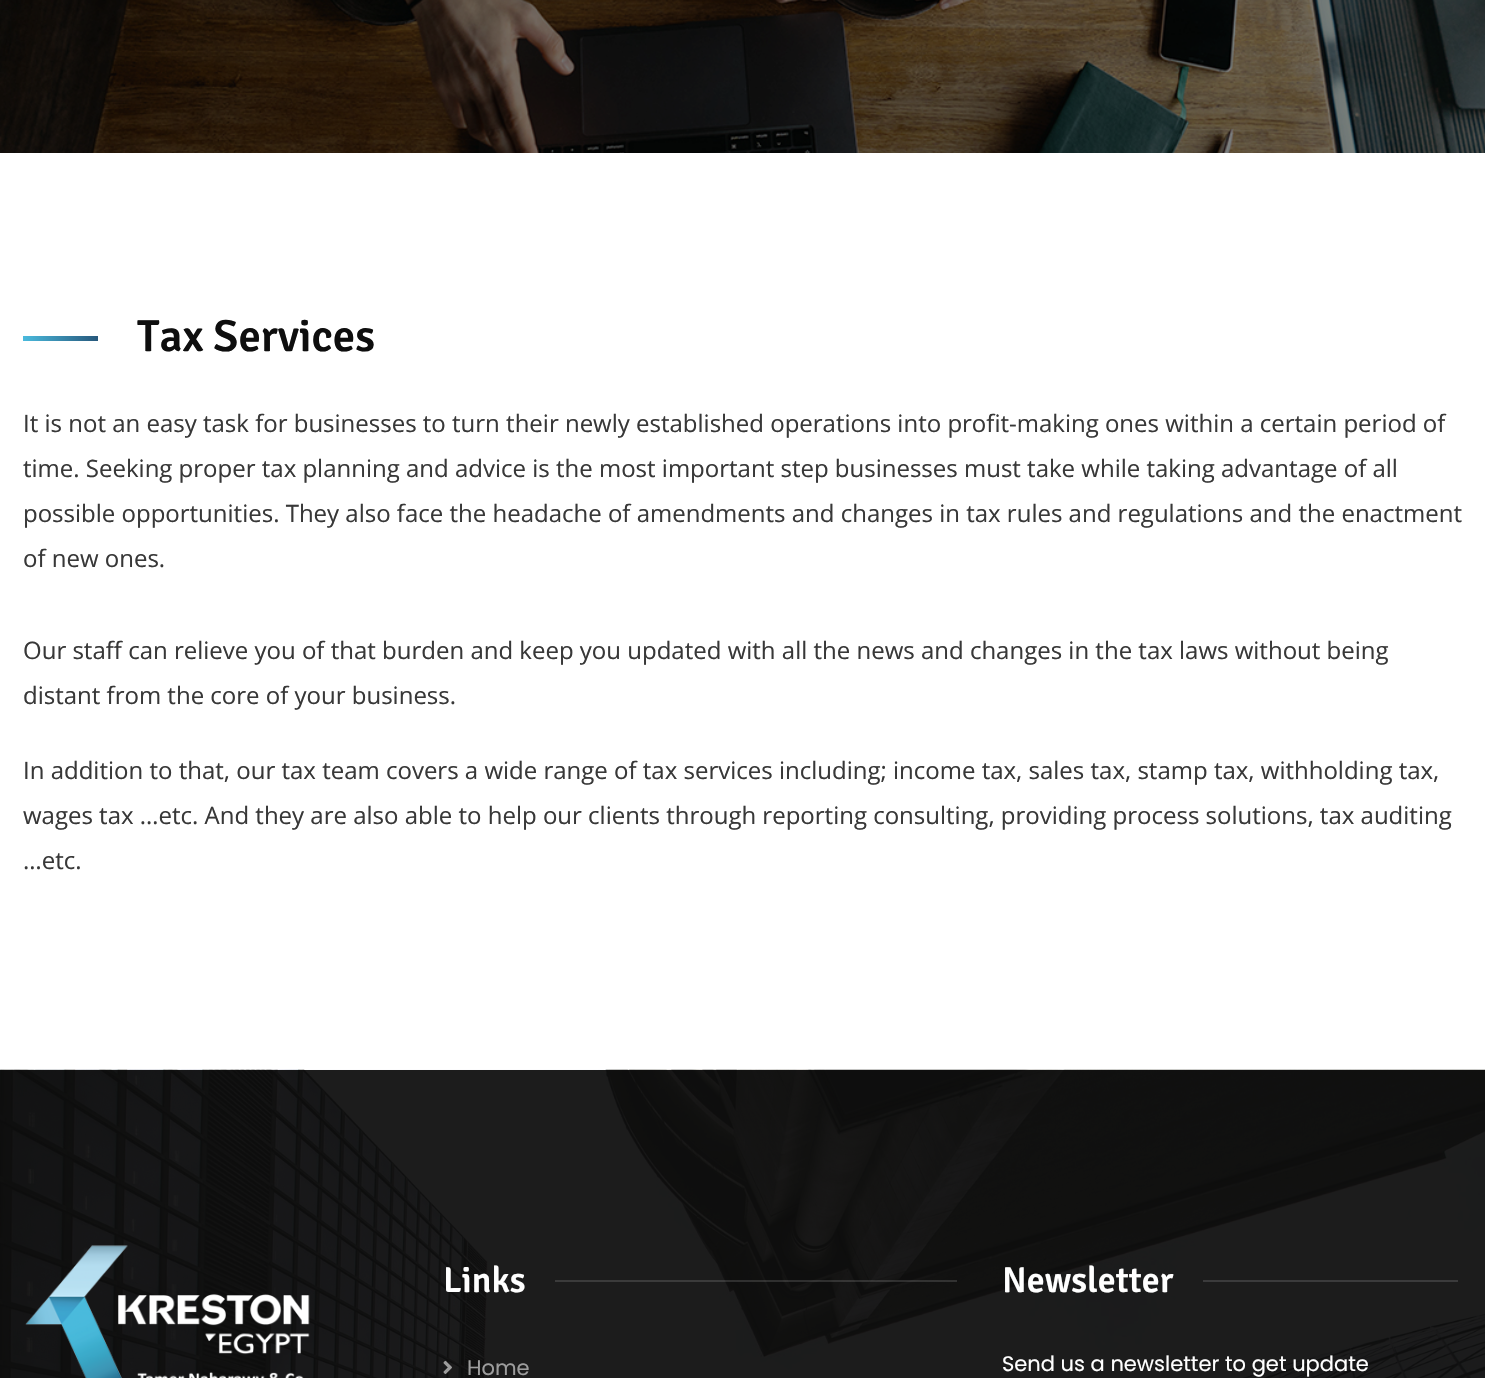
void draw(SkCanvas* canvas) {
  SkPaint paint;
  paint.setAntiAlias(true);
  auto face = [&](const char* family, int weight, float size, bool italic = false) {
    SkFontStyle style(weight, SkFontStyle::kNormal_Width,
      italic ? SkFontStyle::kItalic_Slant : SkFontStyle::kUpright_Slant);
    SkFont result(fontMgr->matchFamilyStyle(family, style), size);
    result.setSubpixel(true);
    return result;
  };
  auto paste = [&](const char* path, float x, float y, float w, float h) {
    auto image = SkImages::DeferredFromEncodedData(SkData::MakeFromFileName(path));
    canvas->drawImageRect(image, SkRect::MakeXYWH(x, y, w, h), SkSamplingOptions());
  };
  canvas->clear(0xffffffff);
  paste("img/1.png", 0, 0, 1485, 153);
  {
    const SkColor colors[] = {0xff4abadd, 0xff27587c};
    const float stops[] = {0, 1};
    const SkPoint ends[] = {{23, 338}, {98, 338}};
    paint.setShader(SkGradientShader::MakeLinear(ends, colors, stops, 2, SkTileMode::kClamp));
    paint.setAlpha(255);
  }
  canvas->drawRect(SkRect::MakeXYWH(23, 336, 75, 5), paint);
  paste("img/2.png", 0, 1069, 1485, 309);
  paste("img/3.png", 25, 1245, 285, 133);
  paint.setShader(nullptr);
  paint.setColor(0x26e9eaee);
  canvas->drawRect(SkRect::MakeXYWH(555, 1280, 402, 2), paint);
  paste("img/4.png", 443, 1360, 9, 14);
  paint.setColor(0xff3b3b3c);
  canvas->drawRect(SkRect::MakeXYWH(1203, 1280, 255, 2), paint);
  auto f0 = face("Signika Negative", 600, 45);
  paint.setColor(0xff0e0e0e);
  canvas->drawString("Tax Services", 137, 351, f0, paint);
  auto f1 = face("Open Sans", 400, 24);
  paint.setColor(0xff383838);
  {
    const struct { const char* s; float x, y; } items[] = {
      {"It is not an easy task for businesses to turn their newly established operations into profit-making ones within a certain period of", 23, 432},
      {"time. Seeking proper tax planning and advice is the most important step businesses must take while taking advantage of all", 23, 477},
      {"possible opportunities. They also face the headache of amendments and changes in tax rules and regulations and the enactment", 23, 522},
      {"of new ones.", 23, 567},
      {"Our staff can relieve you of that burden and keep you updated with all the news and changes in the tax laws without being", 23, 659},
      {"distant from the core of your business.", 23, 704},
      {"In addition to that, our tax team covers a wide range of tax services including; income tax, sales tax, stamp tax, withholding tax,", 23, 779},
      {"wages tax …etc. And they are also able to help our clients through reporting consulting, providing process solutions, tax auditing", 23, 824},
      {"…etc.", 23, 869},
    };
    for (auto [s, x, y] : items) {
      canvas->drawString(s, x, y, f1, paint);
    }
  }
  auto f2 = face("Signika Negative", 600, 36);
  paint.setColor(0xffffffff);
  canvas->drawString("Links", 443, 1292, f2, paint);
  auto f3 = face("Poppins", 400, 21);
  paint.setColor(0xff9d9d9d);
  canvas->drawString("Home", 467, 1375, f3, paint);
  paint.setColor(0xffffffff);
  canvas->drawString("Newsletter", 1002, 1292, f2, paint);
  canvas->drawString("Send us a newsletter to get update", 1002, 1371, f3, paint);
}
